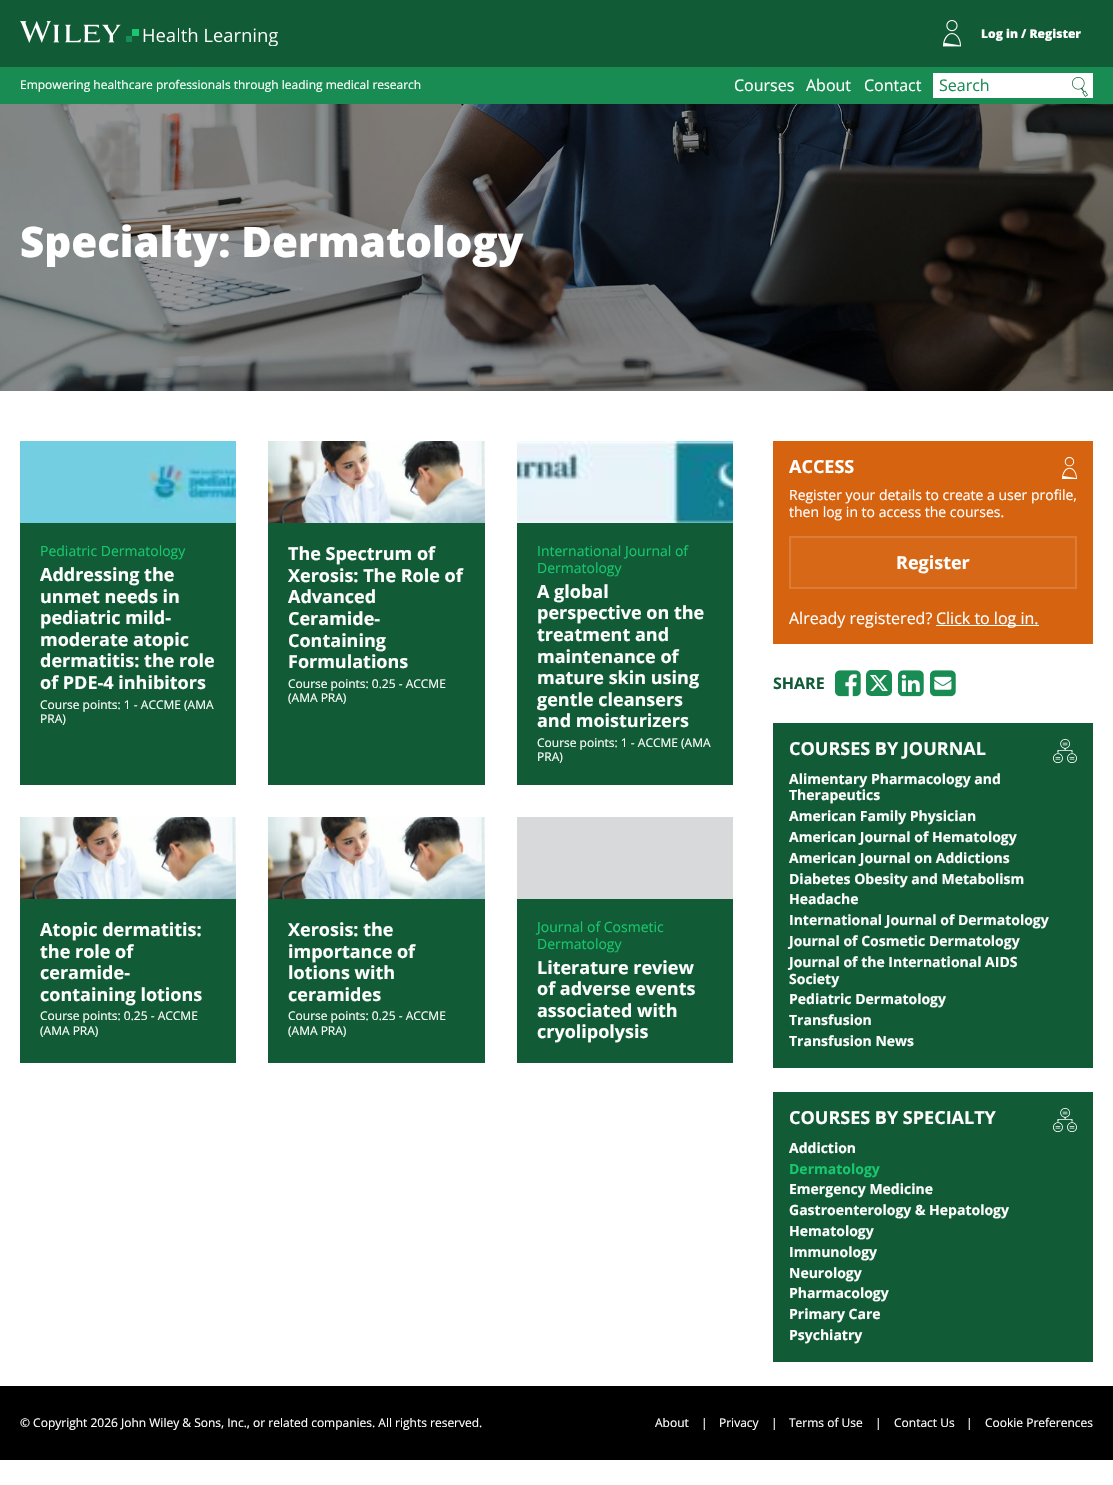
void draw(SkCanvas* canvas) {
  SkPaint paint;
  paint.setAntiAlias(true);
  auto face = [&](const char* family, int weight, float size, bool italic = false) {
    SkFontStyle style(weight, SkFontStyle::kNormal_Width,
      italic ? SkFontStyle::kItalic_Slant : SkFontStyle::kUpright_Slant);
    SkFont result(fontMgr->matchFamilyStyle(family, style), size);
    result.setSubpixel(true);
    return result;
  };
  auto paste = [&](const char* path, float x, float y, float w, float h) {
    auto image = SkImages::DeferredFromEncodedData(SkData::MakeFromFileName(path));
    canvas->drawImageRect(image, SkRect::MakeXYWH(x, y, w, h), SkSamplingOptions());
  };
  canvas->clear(0xffffffff);
  paint.setColor(0xff115c36);
  canvas->drawRect(SkRect::MakeXYWH(0, 0, 1113, 67), paint);
  paste("img/1.png", 20, 21, 258, 25);
  paste("img/2.png", 943, 20, 18, 27);
  paint.setColor(0xff198c53);
  canvas->drawRect(SkRect::MakeXYWH(0, 67, 1113, 37), paint);
  paint.setColor(0xffffffff);
  canvas->drawRect(SkRect::MakeXYWH(933, 73, 160, 25), paint);
  paste("img/3.png", 1072, 77, 16, 20);
  paste("img/4.png", 0, 104, 1113, 287);
  paint.setColor(0xff115c36);
  canvas->drawRect(SkRect::MakeXYWH(20, 523, 216, 262), paint);
  paste("img/5.png", 20, 441, 216, 82);
  canvas->drawRect(SkRect::MakeXYWH(268, 523, 217, 262), paint);
  paste("img/6.png", 268, 441, 217, 82);
  canvas->drawRect(SkRect::MakeXYWH(517, 523, 216, 262), paint);
  paste("img/7.png", 517, 441, 216, 82);
  canvas->drawRect(SkRect::MakeXYWH(20, 899, 216, 164), paint);
  paste("img/8.png", 20, 817, 216, 82);
  canvas->drawRect(SkRect::MakeXYWH(268, 899, 217, 164), paint);
  paste("img/6.png", 268, 817, 217, 82);
  {
    const struct { float x, y, w, h; SkColor color; } items[] = {
      {517, 899, 216, 164, 0xff115c36},
      {517, 817, 216, 82, 0xffd8d9da},
      {773, 441, 320, 203, 0xffd66310},
    };
    for (auto [x, y, w, h, color] : items) {
      paint.setColor(color);
      canvas->drawRect(SkRect::MakeXYWH(x, y, w, h), paint);
    }
  }
  paste("img/9.png", 1062, 457, 15, 22);
  paint.setColor(0xffd76818);
  canvas->drawRect(SkRect::MakeXYWH(790, 537, 286, 51), paint);
  paint.setStroke(true);
  paint.setStrokeWidth(2);
  paint.setColor(0xffdc7c36);
  canvas->drawRect(SkRect::MakeXYWH(790, 537, 286, 51), paint);
  paint.setStroke(false);
  paint.setColor(0xffffffff);
  canvas->drawRect(SkRect::MakeXYWH(936, 625, 103, 1), paint);
  paste("img/10.png", 835, 670, 26, 27);
  paint.setColor(0xff198c53);
  canvas->drawRoundRect(SkRect::MakeXYWH(866, 670, 26, 26), 5, 5, paint);
  paste("img/11.png", 870, 675, 18, 16);
  paste("img/12.png", 898, 670, 26, 27);
  paste("img/13.png", 930, 670, 26, 27);
  paint.setColor(0xff115c36);
  canvas->drawRect(SkRect::MakeXYWH(773, 723, 320, 345), paint);
  paste("img/14.png", 1053, 739, 24, 24);
  canvas->drawRect(SkRect::MakeXYWH(773, 1092, 320, 270), paint);
  paste("img/14.png", 1053, 1108, 24, 24);
  paint.setColor(0xff000000);
  canvas->drawRect(SkRect::MakeXYWH(0, 1386, 1113, 74), paint);
  auto f0 = face("Open Sans", 800, 12);
  paint.setColor(0xffffffff);
  canvas->drawString("Log in / Register", 981, 38, f0, paint);
  auto f1 = face("Open Sans", 400, 12);
  canvas->drawString("Empowering healthcare professionals through leading medical research", 20, 89, f1, paint);
  auto f2 = face("Open Sans", 400, 16);
  {
    const struct { const char* s; float x, y; } items[] = {
      {"Courses", 734, 91},
      {"About", 806, 91},
      {"Contact", 864, 91},
    };
    for (auto [s, x, y] : items) {
      canvas->drawString(s, x, y, f2, paint);
    }
  }
  paint.setColor(0xff198c53);
  canvas->drawString("Search", 939, 91, f2, paint);
  auto f3 = face("Open Sans", 800, 42);
  paint.setColor(0xffffffff);
  canvas->drawString("Specialty: Dermatology", 20, 257, f3, paint);
  auto f4 = face("Open Sans", 400, 14);
  paint.setColor(0xff18c76f);
  canvas->drawString("Pediatric Dermatology", 40, 556, f4, paint);
  auto f5 = face("Open Sans", 700, 18);
  paint.setColor(0xffffffff);
  {
    const struct { const char* s; float x, y; } items[] = {
      {"Addressing the", 40, 581},
      {"unmet needs in", 40, 603},
      {"pediatric mild-", 40, 624},
      {"moderate atopic", 40, 646},
      {"dermatitis: the role", 40, 667},
      {"of PDE-4 inhibitors", 40, 689},
    };
    for (auto [s, x, y] : items) {
      canvas->drawString(s, x, y, f5, paint);
    }
  }
  canvas->drawString("Course points: 1 - ACCME (AMA", 40, 709, f1, paint);
  canvas->drawString("PRA)", 40, 723, f1, paint);
  {
    const struct { const char* s; float x, y; } items[] = {
      {"The Spectrum of", 288, 560},
      {"Xerosis: The Role of", 288, 582},
      {"Advanced", 288, 603},
      {"Ceramide-", 288, 625},
      {"Containing", 288, 647},
      {"Formulations", 288, 668},
    };
    for (auto [s, x, y] : items) {
      canvas->drawString(s, x, y, f5, paint);
    }
  }
  canvas->drawString("Course points: 0.25 - ACCME", 288, 688, f1, paint);
  canvas->drawString("(AMA PRA)", 288, 702, f1, paint);
  paint.setColor(0xff18c76f);
  canvas->drawString("International Journal of", 537, 556, f4, paint);
  canvas->drawString("Dermatology", 537, 573, f4, paint);
  paint.setColor(0xffffffff);
  {
    const struct { const char* s; float x, y; } items[] = {
      {"A global", 537, 598},
      {"perspective on the", 537, 619},
      {"treatment and", 537, 641},
      {"maintenance of", 537, 663},
      {"mature skin using", 537, 684},
      {"gentle cleansers", 537, 706},
      {"and moisturizers", 537, 727},
    };
    for (auto [s, x, y] : items) {
      canvas->drawString(s, x, y, f5, paint);
    }
  }
  canvas->drawString("Course points: 1 - ACCME (AMA", 537, 747, f1, paint);
  canvas->drawString("PRA)", 537, 761, f1, paint);
  {
    const struct { const char* s; float x, y; } items[] = {
      {"Atopic dermatitis:", 40, 936},
      {"the role of", 40, 958},
      {"ceramide-", 40, 979},
      {"containing lotions", 40, 1001},
    };
    for (auto [s, x, y] : items) {
      canvas->drawString(s, x, y, f5, paint);
    }
  }
  canvas->drawString("Course points: 0.25 - ACCME", 40, 1020, f1, paint);
  canvas->drawString("(AMA PRA)", 40, 1035, f1, paint);
  {
    const struct { const char* s; float x, y; } items[] = {
      {"Xerosis: the", 288, 936},
      {"importance of", 288, 958},
      {"lotions with", 288, 979},
      {"ceramides", 288, 1001},
    };
    for (auto [s, x, y] : items) {
      canvas->drawString(s, x, y, f5, paint);
    }
  }
  canvas->drawString("Course points: 0.25 - ACCME", 288, 1020, f1, paint);
  canvas->drawString("(AMA PRA)", 288, 1035, f1, paint);
  paint.setColor(0xff18c76f);
  canvas->drawString("Journal of Cosmetic", 537, 932, f4, paint);
  canvas->drawString("Dermatology", 537, 949, f4, paint);
  paint.setColor(0xffffffff);
  {
    const struct { const char* s; float x, y; } items[] = {
      {"Literature review", 537, 974},
      {"of adverse events", 537, 995},
      {"associated with", 537, 1017},
      {"cryolipolysis", 537, 1038},
      {"ACCESS", 789, 473},
    };
    for (auto [s, x, y] : items) {
      canvas->drawString(s, x, y, f5, paint);
    }
  }
  canvas->drawString("Register your details to create a user profile,", 789, 500, f4, paint);
  canvas->drawString("then log in to access the courses.", 789, 517, f4, paint);
  canvas->drawString("Register", 896, 569, f5, paint);
  canvas->drawString("Already registered?", 789, 624, f2, paint);
  canvas->drawString("Click to log in.", 936, 624, f2, paint);
  auto f6 = face("Open Sans", 700, 16);
  paint.setColor(0xff115c36);
  canvas->drawString("SHARE", 773, 689, f6, paint);
  paint.setColor(0xffffffff);
  canvas->drawString("COURSES BY JOURNAL", 789, 755, f5, paint);
  auto f7 = face("Open Sans", 700, 14);
  {
    const struct { const char* s; float x, y; } items[] = {
      {"Alimentary Pharmacology and", 789, 784},
      {"Therapeutics", 789, 800},
      {"American Family Physician", 789, 821},
      {"American Journal of Hematology", 789, 842},
      {"American Journal on Addictions", 789, 863},
      {"Diabetes Obesity and Metabolism", 789, 884},
      {"Headache", 789, 904},
      {"International Journal of Dermatology", 789, 925},
      {"Journal of Cosmetic Dermatology", 789, 946},
      {"Journal of the International AIDS", 789, 967},
      {"Society", 789, 984},
      {"Pediatric Dermatology", 789, 1004},
      {"Transfusion", 789, 1025},
      {"Transfusion News", 789, 1046},
    };
    for (auto [s, x, y] : items) {
      canvas->drawString(s, x, y, f7, paint);
    }
  }
  canvas->drawString("COURSES BY SPECIALTY", 789, 1124, f5, paint);
  canvas->drawString("Addiction", 789, 1153, f7, paint);
  paint.setColor(0xff18c76f);
  canvas->drawString("Dermatology", 789, 1174, f7, paint);
  paint.setColor(0xffffffff);
  {
    const struct { const char* s; float x, y; } items[] = {
      {"Emergency Medicine", 789, 1194},
      {"Gastroenterology & Hepatology", 789, 1215},
      {"Hematology", 789, 1236},
      {"Immunology", 789, 1257},
      {"Neurology", 789, 1278},
      {"Pharmacology", 789, 1298},
      {"Primary Care", 789, 1319},
      {"Psychiatry", 789, 1340},
    };
    for (auto [s, x, y] : items) {
      canvas->drawString(s, x, y, f7, paint);
    }
  }
  {
    const struct { const char* s; float x, y; } items[] = {
      {"© Copyright 2026 John Wiley & Sons, Inc., or related companies. All rights reserved.", 20, 1427},
      {"About", 655, 1427},
      {"|", 701, 1427},
      {"Privacy", 719, 1427},
      {"|", 771, 1427},
      {"Terms of Use", 789, 1427},
      {"|", 875, 1427},
      {"Contact Us", 894, 1427},
      {"|", 966, 1427},
      {"Cookie Preferences", 985, 1427},
    };
    for (auto [s, x, y] : items) {
      canvas->drawString(s, x, y, f1, paint);
    }
  }
}
